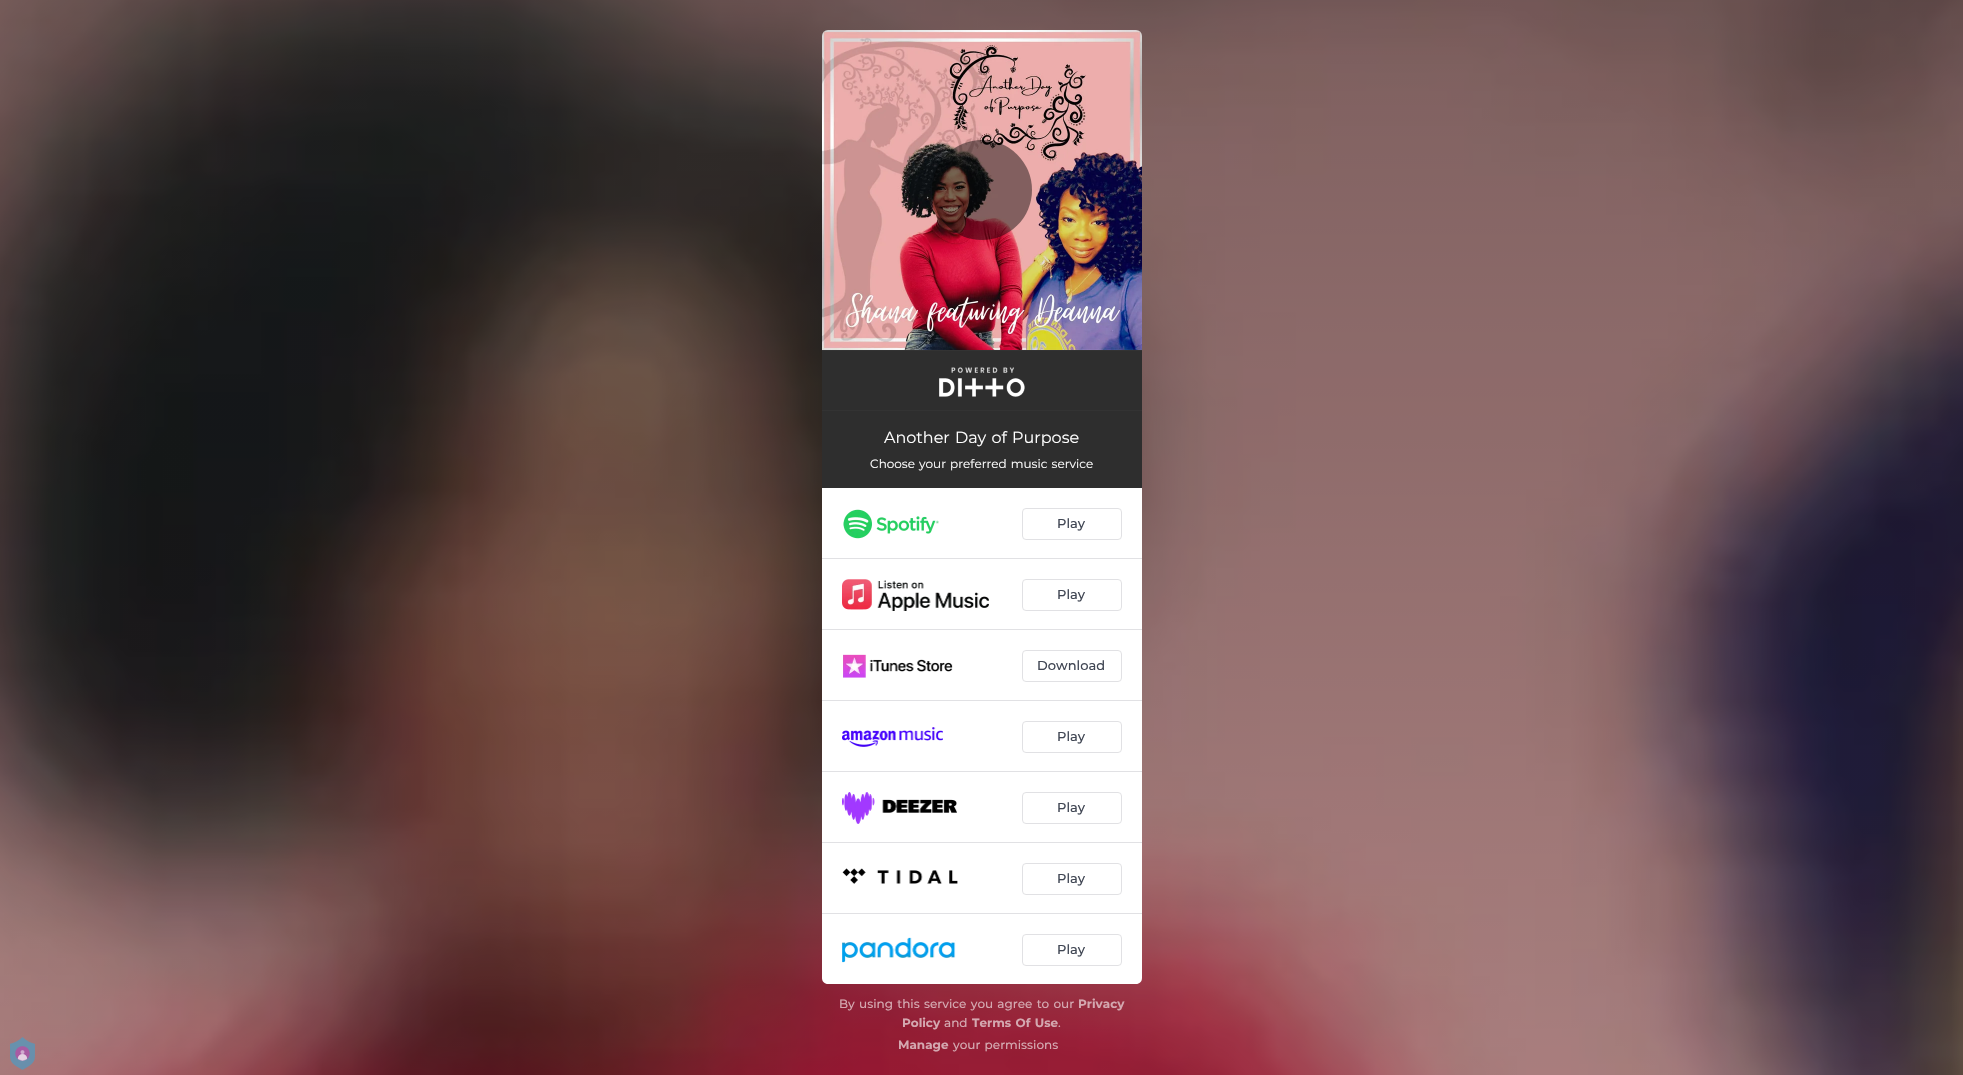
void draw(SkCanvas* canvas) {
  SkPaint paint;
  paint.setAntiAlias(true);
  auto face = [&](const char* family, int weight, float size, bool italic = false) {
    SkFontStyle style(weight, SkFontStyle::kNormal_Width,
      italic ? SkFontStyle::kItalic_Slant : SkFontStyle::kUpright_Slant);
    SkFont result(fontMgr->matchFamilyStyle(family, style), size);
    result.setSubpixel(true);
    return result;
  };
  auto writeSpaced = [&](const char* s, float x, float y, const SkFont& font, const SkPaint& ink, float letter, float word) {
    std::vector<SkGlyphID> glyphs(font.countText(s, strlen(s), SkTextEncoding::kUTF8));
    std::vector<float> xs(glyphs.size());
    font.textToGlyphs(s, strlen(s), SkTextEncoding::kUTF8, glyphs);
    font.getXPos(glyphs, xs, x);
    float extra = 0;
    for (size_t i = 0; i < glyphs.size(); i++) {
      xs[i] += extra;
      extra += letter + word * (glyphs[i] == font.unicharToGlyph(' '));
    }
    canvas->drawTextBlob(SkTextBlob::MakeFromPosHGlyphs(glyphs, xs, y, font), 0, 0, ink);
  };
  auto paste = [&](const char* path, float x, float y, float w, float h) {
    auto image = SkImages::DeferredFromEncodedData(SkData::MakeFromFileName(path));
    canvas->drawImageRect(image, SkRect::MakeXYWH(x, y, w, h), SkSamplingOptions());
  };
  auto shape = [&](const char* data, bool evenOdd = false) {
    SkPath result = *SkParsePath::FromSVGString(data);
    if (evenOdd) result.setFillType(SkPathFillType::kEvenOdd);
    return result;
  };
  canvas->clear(0xffffffff);
  paste("img/2.png", 0, 0, 1963, 1075);
  paste("img/1.png", 10, 1037, 25, 33);
  paste("img/3.png", 822, 30, 320, 320);
  paint.setColor(0x73000000);
  canvas->drawCircle(982, 190, 50, paint);
  {
    const struct { float x, y, w, h; SkColor color; } items[] = {
      {822, 351, 320, 59, 0xff2e2e2e},
      {822, 350, 320, 1, 0xff333333},
      {822, 410, 320, 1, 0xff333333},
    };
    for (auto [x, y, w, h, color] : items) {
      paint.setColor(color);
      canvas->drawRect(SkRect::MakeXYWH(x, y, w, h), paint);
    }
  }
  paste("img/4.png", 939, 367, 86, 30);
  paint.setColor(0xff2e2e2e);
  canvas->drawRect(SkRect::MakeXYWH(822, 411, 320, 77), paint);
  paint.setColor(0xffffffff);
  canvas->drawPath(shape("M822 488H1142V978C1142 981.5 1139.5 984 1136 984H828C824.5 984 822 981.5 822 978Z"), paint);
  paint.setColor(0xffe1e1e4);
  canvas->drawRect(SkRect::MakeXYWH(822, 558, 320, 1), paint);
  paste("img/5.png", 843, 509, 96, 30);
  paint.setStroke(true);
  paint.setStrokeWidth(1);
  canvas->drawRoundRect(SkRect::MakeXYWH(1022.5f, 508.5f, 99, 31), 3.5f, 3.5f, paint);
  paint.setStroke(false);
  canvas->drawRect(SkRect::MakeXYWH(822, 629, 320, 1), paint);
  paste("img/6.png", 842, 579, 147, 32);
  paint.setStroke(true);
  canvas->drawRoundRect(SkRect::MakeXYWH(1022.5f, 579.5f, 99, 31), 3.5f, 3.5f, paint);
  paint.setStroke(false);
  canvas->drawRect(SkRect::MakeXYWH(822, 700, 320, 1), paint);
  paste("img/7.png", 843, 654, 110, 24);
  paint.setStroke(true);
  canvas->drawRoundRect(SkRect::MakeXYWH(1022.5f, 650.5f, 99, 31), 3.5f, 3.5f, paint);
  paint.setStroke(false);
  canvas->drawRect(SkRect::MakeXYWH(822, 771, 320, 1), paint);
  paste("img/8.png", 842, 727, 101, 20);
  paint.setStroke(true);
  canvas->drawRoundRect(SkRect::MakeXYWH(1022.5f, 721.5f, 99, 31), 3.5f, 3.5f, paint);
  paint.setStroke(false);
  canvas->drawRect(SkRect::MakeXYWH(822, 842, 320, 1), paint);
  paste("img/9.png", 842, 792, 115, 32);
  paint.setStroke(true);
  canvas->drawRoundRect(SkRect::MakeXYWH(1022.5f, 792.5f, 99, 31), 3.5f, 3.5f, paint);
  paint.setStroke(false);
  canvas->drawRect(SkRect::MakeXYWH(822, 913, 320, 1), paint);
  paste("img/10.png", 842, 868, 116, 16);
  paint.setStroke(true);
  canvas->drawRoundRect(SkRect::MakeXYWH(1022.5f, 863.5f, 99, 31), 3.5f, 3.5f, paint);
  paste("img/11.png", 842, 937, 114, 26);
  canvas->drawRoundRect(SkRect::MakeXYWH(1022.5f, 934.5f, 99, 31), 3.5f, 3.5f, paint);
  auto f0 = face("Montserrat", 400, 16);
  paint.setStroke(false);
  paint.setColor(0xffffffff);
  writeSpaced("Another Day of Purpose", 884, 443, f0, paint, 0, 1);
  auto f1 = face("Montserrat", 400, 12);
  writeSpaced("Choose your preferred music service", 870, 468, f1, paint, 0, 1);
  auto f2 = face("Montserrat", 500, 13);
  paint.setColor(0xff414754);
  {
    const struct { const char* s; float x, y; } items[] = {
      {"Play", 1057, 528},
      {"Play", 1057, 599},
      {"Download", 1037, 670},
      {"Play", 1057, 741},
      {"Play", 1057, 812},
      {"Play", 1057, 883},
      {"Play", 1057, 954},
    };
    for (auto [s, x, y] : items) {
      canvas->drawString(s, x, y, f2, paint);
    }
  }
  auto f3 = face("Montserrat", 500, 12);
  paint.setColor(0xffd4a8b0);
  writeSpaced("By using this service you agree to our", 839, 1008, f3, paint, 0, 1);
  auto f4 = face("Montserrat", 700, 12);
  canvas->drawString("Privacy", 1078, 1008, f4, paint);
  canvas->drawString("Policy", 902, 1027, f4, paint);
  canvas->drawString("and", 944, 1027, f3, paint);
  writeSpaced("Terms Of Use", 972, 1027, f4, paint, 0, 1);
  canvas->drawString(".", 1058, 1027, f3, paint);
  canvas->drawString("Manage", 898, 1049, f4, paint);
  writeSpaced("your permissions", 953, 1049, f3, paint, 0, 1);
}
